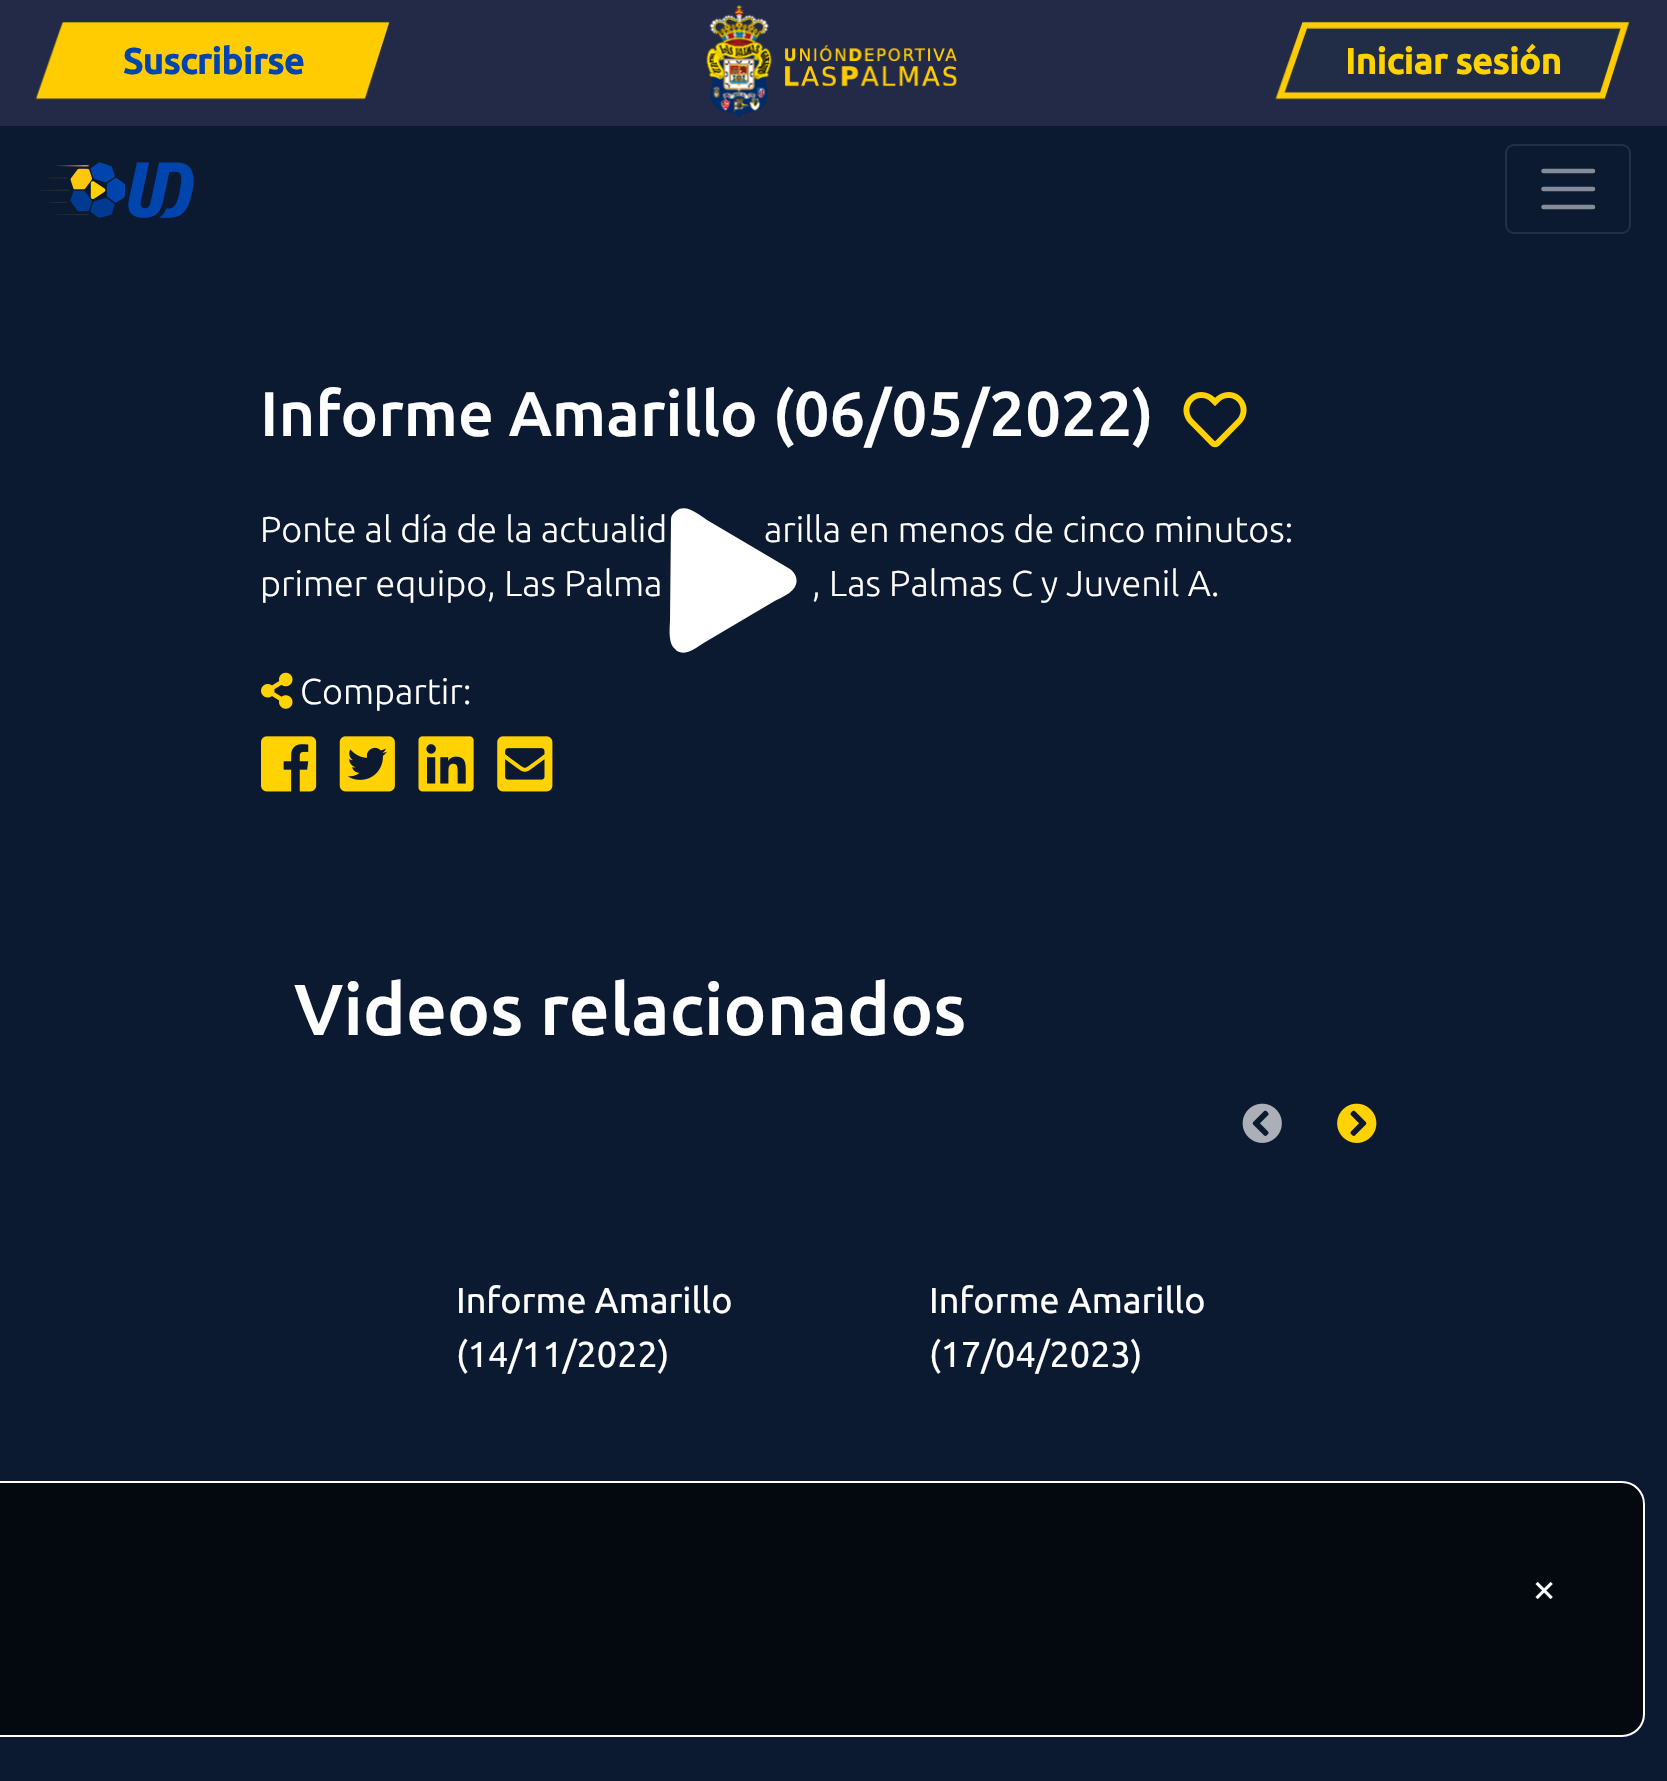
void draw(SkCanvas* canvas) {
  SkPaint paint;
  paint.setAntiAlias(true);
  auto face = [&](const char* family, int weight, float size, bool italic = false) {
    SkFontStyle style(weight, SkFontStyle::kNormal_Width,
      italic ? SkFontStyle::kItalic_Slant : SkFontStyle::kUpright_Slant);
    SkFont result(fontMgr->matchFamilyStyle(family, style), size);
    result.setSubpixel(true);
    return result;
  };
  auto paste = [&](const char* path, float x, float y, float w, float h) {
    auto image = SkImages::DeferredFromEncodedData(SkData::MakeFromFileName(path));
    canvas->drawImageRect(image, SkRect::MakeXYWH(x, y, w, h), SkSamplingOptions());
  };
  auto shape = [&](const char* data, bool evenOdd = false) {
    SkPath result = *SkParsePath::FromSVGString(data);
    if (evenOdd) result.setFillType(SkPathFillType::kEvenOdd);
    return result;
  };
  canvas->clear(0xff0c1a31);
  paint.setColor(0xff222a48);
  canvas->drawRect(SkRect::MakeXYWH(0, 0, 1667, 126), paint);
  paste("img/1.png", 35, 21, 355, 79);
  paste("img/2.png", 706, 5, 251, 113);
  paste("img/3.png", 1275, 21, 355, 79);
  paste("img/4.png", 38, 162, 156, 56);
  paint.setStroke(true);
  paint.setStrokeWidth(2);
  paint.setColor(0xff232f47);
  canvas->drawRoundRect(SkRect::MakeXYWH(1506, 145, 124, 88), 8, 8, paint);
  paint.setStrokeWidth(4.5f);
  paint.setStrokeCap(SkPaint::kRound_Cap);
  paint.setColor(0xff858c99);
  canvas->drawPath(shape("M1543.5 171H1593M1543.5 189H1593M1543.5 207H1593"), paint);
  paste("img/5.png", 1183, 392, 64, 56);
  paste("img/6.png", 261, 672, 32, 37);
  paste("img/7.png", 261, 736, 56, 56);
  paste("img/8.png", 339, 736, 56, 56);
  paste("img/9.png", 418, 736, 56, 56);
  paste("img/10.png", 497, 736, 56, 56);
  paint.setStroke(false);
  paint.setColor(0xffffffff);
  canvas->drawPath(shape("M790 569L707 520C699 515 686 503 676 511C673 513 671 516 671 519L670 620C670 625 668 640 673 647L677 651C688 657 699 645 707 641L773 602C782 597 800 591 796 577C795 574 793 571 790 569Z"), paint);
  paste("img/11.png", 1242, 1103, 40, 40);
  paste("img/12.png", 1337, 1103, 40, 40);
  paint.setColor(0xff04080f);
  canvas->drawRoundRect(SkRect::MakeXYWH(-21, 1482, 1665, 254), 22, 22, paint);
  paint.setStroke(true);
  paint.setStrokeWidth(2);
  paint.setStrokeCap(SkPaint::kButt_Cap);
  paint.setColor(0xffffffff);
  canvas->drawRoundRect(SkRect::MakeXYWH(-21, 1482, 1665, 254), 22, 22, paint);
  auto f0 = face("Ubuntu", 700, 36);
  paint.setStroke(false);
  paint.setColor(0xff0045ad);
  canvas->drawString("Suscribirse", 123, 74, f0, paint);
  paint.setColor(0xffffd200);
  canvas->drawString("Iniciar sesión", 1345, 74, f0, paint);
  auto f1 = face("Ubuntu", 500, 63);
  paint.setColor(0xffffffff);
  canvas->drawString("Informe Amarillo (06/05/2022)", 260, 436, f1, paint);
  auto f2 = face("Ubuntu", 300, 36);
  {
    const struct { const char* s; float x, y; } items[] = {
      {"Ponte al día de la actualid", 260, 542},
      {"arilla en menos de cinco minutos:", 764, 542},
      {"primer equipo, Las Palma", 260, 596},
      {", Las Palmas C y Juvenil A.", 812, 596},
      {"Compartir:", 300, 704},
    };
    for (auto [s, x, y] : items) {
      canvas->drawString(s, x, y, f2, paint);
    }
  }
  auto f3 = face("Ubuntu", 500, 72);
  canvas->drawString("Videos relacionados", 294, 1035, f3, paint);
  auto f4 = face("Ubuntu", 400, 36);
  {
    const struct { const char* s; float x, y; } items[] = {
      {"Informe Amarillo", 456, 1313},
      {"(14/11/2022)", 456, 1367},
      {"Informe Amarillo", 929, 1313},
      {"(17/04/2023)", 929, 1367},
    };
    for (auto [s, x, y] : items) {
      canvas->drawString(s, x, y, f4, paint);
    }
  }
  auto f5 = face("DejaVu Sans", 400, 29);
  canvas->drawString("✕", 1532, 1601, f5, paint);
}
